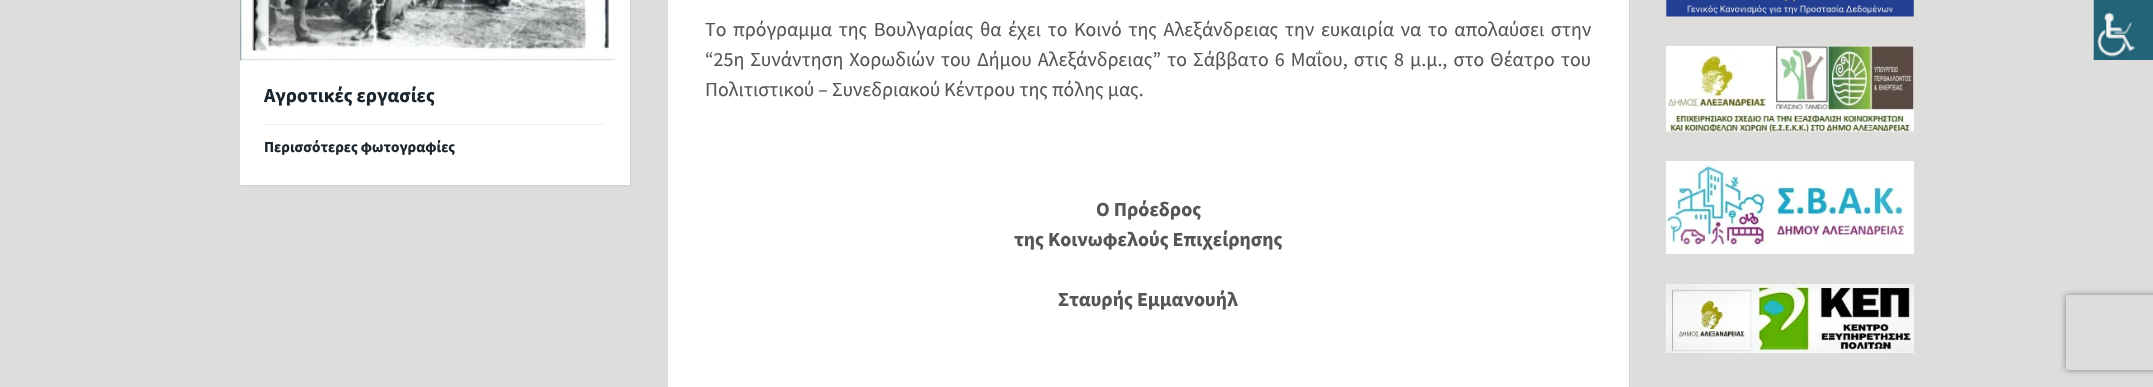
void draw(SkCanvas* canvas) {
  SkPaint paint;
  paint.setAntiAlias(true);
  auto face = [&](const char* family, int weight, float size, bool italic = false) {
    SkFontStyle style(weight, SkFontStyle::kNormal_Width,
      italic ? SkFontStyle::kItalic_Slant : SkFontStyle::kUpright_Slant);
    SkFont result(fontMgr->matchFamilyStyle(family, style), size);
    result.setSubpixel(true);
    return result;
  };
  auto writeSpaced = [&](const char* s, float x, float y, const SkFont& font, const SkPaint& ink, float letter, float word) {
    std::vector<SkGlyphID> glyphs(font.countText(s, strlen(s), SkTextEncoding::kUTF8));
    std::vector<float> xs(glyphs.size());
    font.textToGlyphs(s, strlen(s), SkTextEncoding::kUTF8, glyphs);
    font.getXPos(glyphs, xs, x);
    float extra = 0;
    for (size_t i = 0; i < glyphs.size(); i++) {
      xs[i] += extra;
      extra += letter + word * (glyphs[i] == font.unicharToGlyph(' '));
    }
    canvas->drawTextBlob(SkTextBlob::MakeFromPosHGlyphs(glyphs, xs, y, font), 0, 0, ink);
  };
  auto paste = [&](const char* path, float x, float y, float w, float h) {
    auto image = SkImages::DeferredFromEncodedData(SkData::MakeFromFileName(path));
    canvas->drawImageRect(image, SkRect::MakeXYWH(x, y, w, h), SkSamplingOptions());
  };
  auto shape = [&](const char* data, bool evenOdd = false) {
    SkPath result = *SkParsePath::FromSVGString(data);
    if (evenOdd) result.setFillType(SkPathFillType::kEvenOdd);
    return result;
  };
  canvas->clear(0xffdddddc);
  paint.setColor(0xffd2d2d1);
  canvas->drawPath(shape("M241 185V186H631V-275H630V185Z"), paint);
  paint.setColor(0xffffffff);
  canvas->drawRect(SkRect::MakeXYWH(240, 0, 390, 185), paint);
  paste("img/1.png", 240, 0, 375, 61);
  paint.setColor(0xfff0f0f0);
  canvas->drawRect(SkRect::MakeXYWH(265, 124, 340, 1), paint);
  paint.setColor(0xffd2d2d1);
  canvas->drawPath(shape("M669 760V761H1630V-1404H1629V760Z"), paint);
  paint.setColor(0xffffffff);
  canvas->drawRect(SkRect::MakeXYWH(668, 0, 961, 387), paint);
  paste("img/2.png", 1666, 0, 248, 17);
  canvas->drawRect(SkRect::MakeXYWH(1666, 46, 248, 85), paint);
  paste("img/3.png", 1666, 46, 248, 86);
  canvas->drawRect(SkRect::MakeXYWH(1666, 161, 248, 93), paint);
  paste("img/4.png", 1666, 162, 238, 87);
  canvas->drawRect(SkRect::MakeXYWH(1666, 284, 248, 69), paint);
  paste("img/5.png", 1666, 284, 248, 69);
  paste("img/6.png", 2093, 0, 60, 60);
  canvas->save();
  canvas->clipPath(shape("M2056 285H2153V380H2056ZM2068.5 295H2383.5C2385 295 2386 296 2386 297.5V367.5C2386 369 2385 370 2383.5 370H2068.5C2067 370 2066 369 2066 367.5V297.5C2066 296 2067 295 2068.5 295Z", true), true);
  paint.setColor(0xff808080);
  paint.setMaskFilter(SkMaskFilter::MakeBlur(kNormal_SkBlurStyle, 3));
  canvas->drawRoundRect(SkRect::MakeXYWH(2066, 295, 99, 75), 2.5f, 2.5f, paint);
  paint.setMaskFilter(nullptr);
  canvas->restore();
  auto f0 = face("Source Sans Pro", 700, 19.75f);
  paint.setColor(0xff1c262e);
  canvas->drawString("Αγροτικές εργασίες", 264, 102, f0, paint);
  auto f1 = face("Source Sans Pro", 700, 15.25f);
  canvas->drawString("Περισσότερες φωτογραφίες", 264, 152, f1, paint);
  auto f2 = face("Source Sans Pro", 400, 20);
  paint.setColor(0xff565656);
  writeSpaced("Το πρόγραμμα της Βουλγαρίας θα έχει το Κοινό της Αλεξάνδρειας την ευκαιρία να το απολαύσει στην", 705, 36, f2, paint, 0, 2.6f);
  writeSpaced("“25η Συνάντηση Χορωδιών του Δήμου Αλεξάνδρειας” το Σάββατο 6 Μαΐου, στις 8 μ.μ., στο Θέατρο του", 705, 66, f2, paint, 0, 2.1f);
  canvas->drawString("Πολιτιστικού – Συνεδριακού Κέντρου της πόλης μας.", 705, 96, f2, paint);
  auto f3 = face("Source Sans Pro", 700, 20);
  {
    const struct { const char* s; float x, y; } items[] = {
      {"Ο Πρόεδρος", 1096, 216},
      {"της Κοινωφελούς Επιχείρησης", 1014, 246},
      {"Σταυρής Εμμανουήλ", 1058, 306},
    };
    for (auto [s, x, y] : items) {
      canvas->drawString(s, x, y, f3, paint);
    }
  }
}
